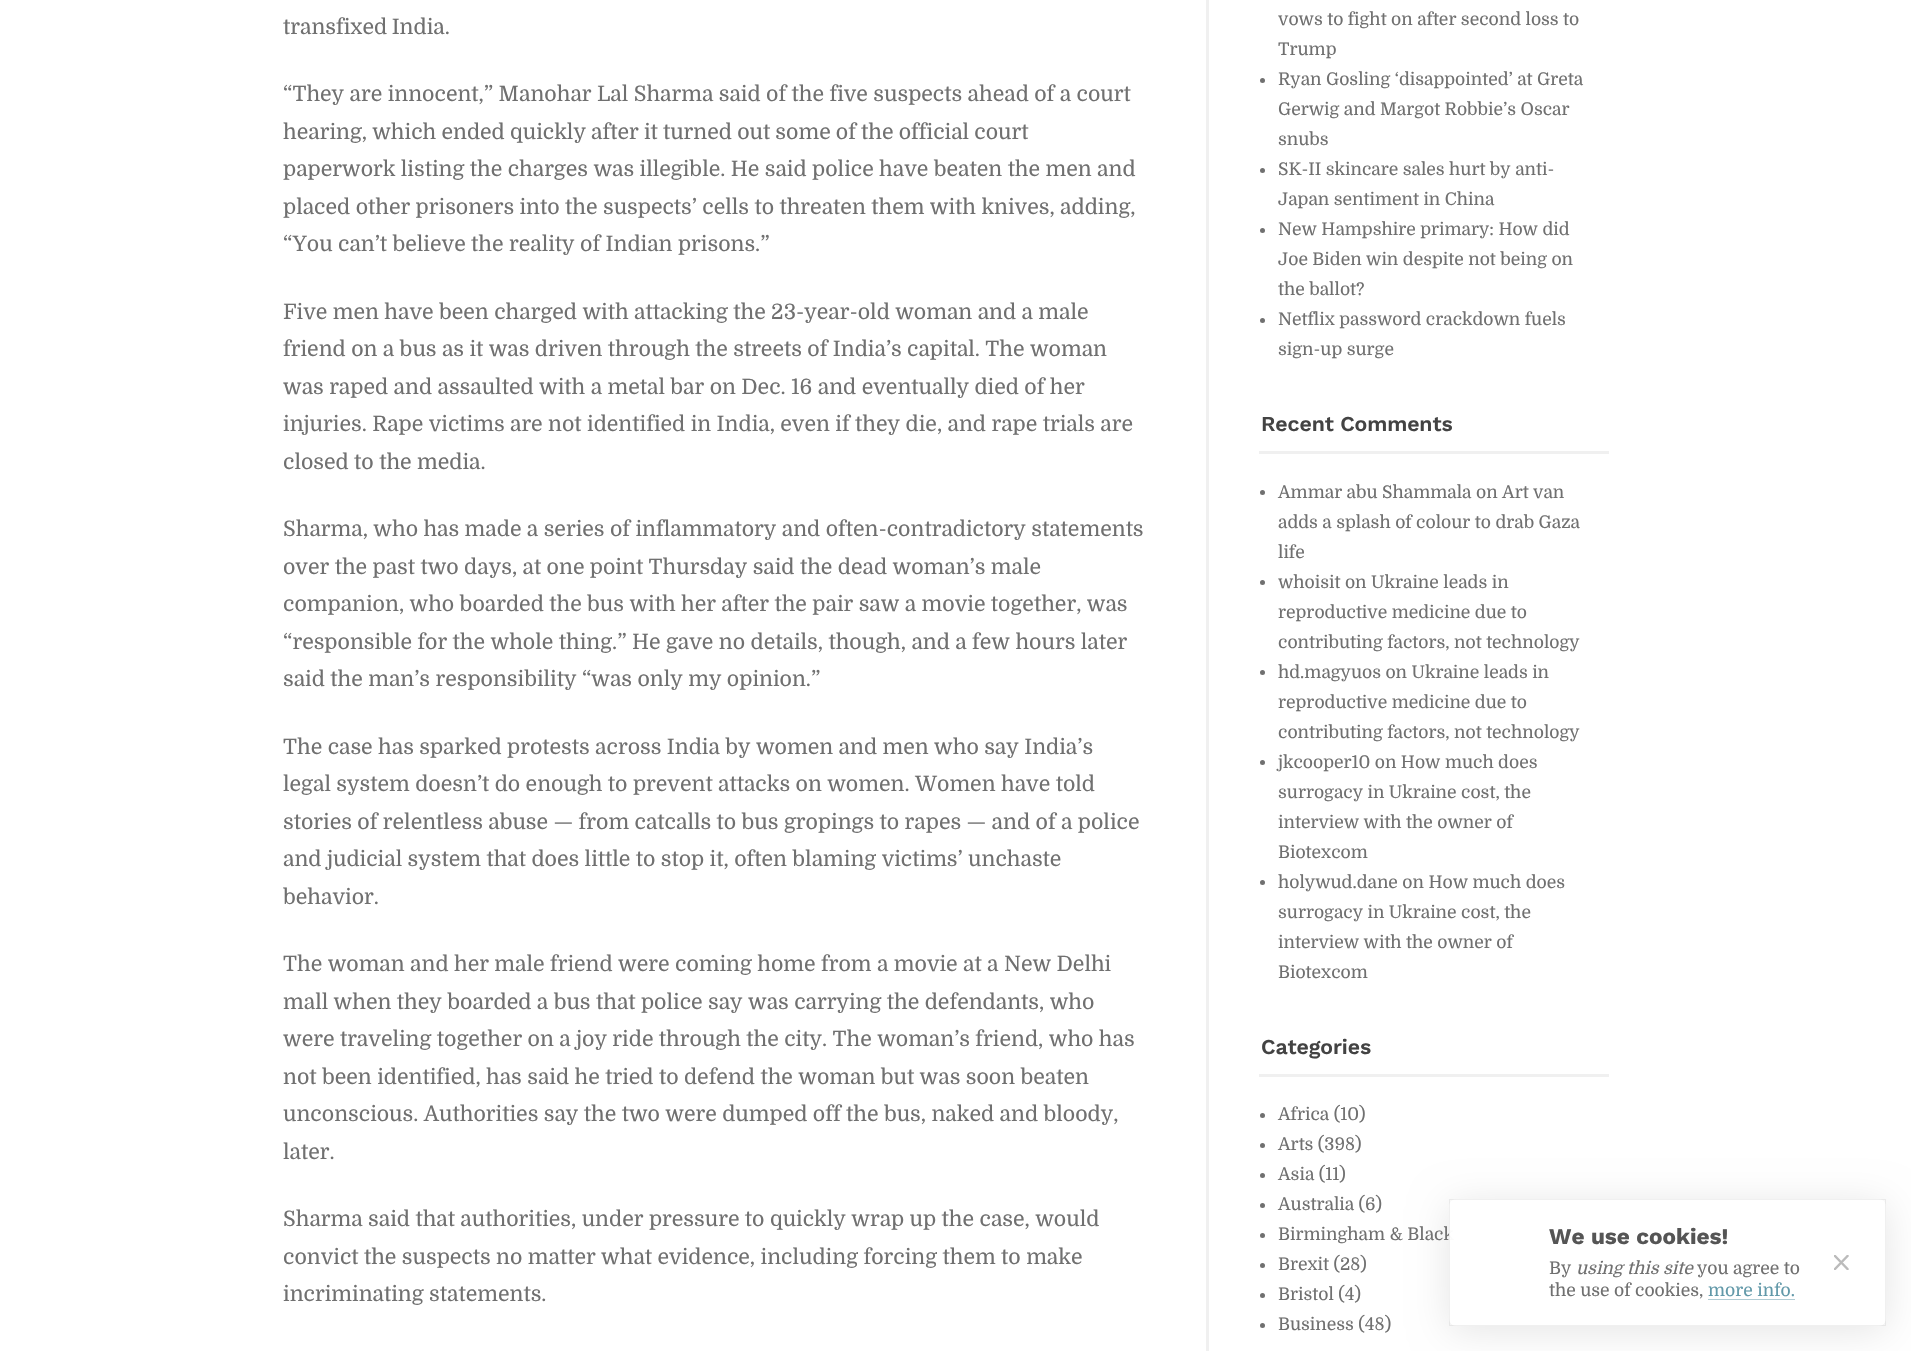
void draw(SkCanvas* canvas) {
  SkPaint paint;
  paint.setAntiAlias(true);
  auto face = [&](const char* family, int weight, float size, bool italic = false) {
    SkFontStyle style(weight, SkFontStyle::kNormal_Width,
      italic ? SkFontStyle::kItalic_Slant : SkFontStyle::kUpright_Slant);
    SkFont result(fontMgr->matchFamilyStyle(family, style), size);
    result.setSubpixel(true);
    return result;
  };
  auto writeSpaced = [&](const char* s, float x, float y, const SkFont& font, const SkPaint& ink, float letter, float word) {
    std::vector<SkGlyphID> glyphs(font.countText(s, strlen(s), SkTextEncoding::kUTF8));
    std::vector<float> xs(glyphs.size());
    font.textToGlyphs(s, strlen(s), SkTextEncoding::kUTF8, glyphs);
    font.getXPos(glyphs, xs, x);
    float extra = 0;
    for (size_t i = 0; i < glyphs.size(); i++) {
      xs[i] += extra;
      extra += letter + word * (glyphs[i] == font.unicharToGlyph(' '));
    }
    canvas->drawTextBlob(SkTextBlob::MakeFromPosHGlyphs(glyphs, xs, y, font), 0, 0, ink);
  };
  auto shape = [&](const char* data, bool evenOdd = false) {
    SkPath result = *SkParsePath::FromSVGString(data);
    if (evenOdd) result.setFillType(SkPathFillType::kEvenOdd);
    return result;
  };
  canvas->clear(0xffffffff);
  paint.setColor(0xfff0f0f0);
  canvas->drawRect(SkRect::MakeXYWH(1206, 0, 3, 1351), paint);
  paint.setColor(0xff707070);
  canvas->drawCircle(1262.5f, 80.5f, 2.5f, paint);
  canvas->drawCircle(1262.5f, 170.5f, 2.5f, paint);
  canvas->drawCircle(1262.5f, 230.5f, 2.5f, paint);
  canvas->drawCircle(1262.5f, 320.5f, 2.5f, paint);
  paint.setColor(0xfff0f0f0);
  canvas->drawRect(SkRect::MakeXYWH(1259, 451, 350, 3), paint);
  paint.setColor(0xff707070);
  canvas->drawCircle(1262.5f, 492.5f, 2.5f, paint);
  canvas->drawCircle(1262.5f, 582.5f, 2.5f, paint);
  canvas->drawCircle(1262.5f, 672.5f, 2.5f, paint);
  canvas->drawCircle(1262.5f, 762.5f, 2.5f, paint);
  canvas->drawCircle(1262.5f, 882.5f, 2.5f, paint);
  paint.setColor(0xfff0f0f0);
  canvas->drawRect(SkRect::MakeXYWH(1259, 1074, 350, 3), paint);
  paint.setColor(0xff707070);
  canvas->drawCircle(1262.5f, 1115.5f, 2.5f, paint);
  canvas->drawCircle(1262.5f, 1145.5f, 2.5f, paint);
  canvas->drawCircle(1262.5f, 1175.5f, 2.5f, paint);
  canvas->drawCircle(1262.5f, 1205.5f, 2.5f, paint);
  canvas->drawCircle(1262.5f, 1235.5f, 2.5f, paint);
  canvas->drawCircle(1262.5f, 1265.5f, 2.5f, paint);
  canvas->drawCircle(1262.5f, 1295.5f, 2.5f, paint);
  canvas->drawCircle(1262.5f, 1325.5f, 2.5f, paint);
  canvas->save();
  canvas->clipPath(shape("M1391 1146H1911V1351H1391ZM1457 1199H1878C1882.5 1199 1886 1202.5 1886 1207V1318C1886 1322.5 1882.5 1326 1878 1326H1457C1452.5 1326 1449 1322.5 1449 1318V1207C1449 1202.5 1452.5 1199 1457 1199Z", true), true);
  paint.setColor(0x1a000000);
  paint.setMaskFilter(SkMaskFilter::MakeBlur(kNormal_SkBlurStyle, 19));
  canvas->drawRoundRect(SkRect::MakeXYWH(1449, 1204, 437, 127), 8, 8, paint);
  paint.setMaskFilter(nullptr);
  canvas->restore();
  auto f0 = face("Domine", 400, 21.25f);
  paint.setColor(0xff707070);
  writeSpaced("transfixed India.", 283, 34, f0, paint, 0, -1);
  canvas->drawString("“They are innocent,” Manohar Lal Sharma said of the five suspects ahead of a court", 283, 101, f0, paint);
  writeSpaced("hearing, which ended quickly after it turned out some of the official court", 283, 139, f0, paint, 0, -0.25f);
  {
    const struct { const char* s; float x, y; } items[] = {
      {"paperwork listing the charges was illegible. He said police have beaten the men and", 283, 176},
      {"placed other prisoners into the suspects’ cells to threaten them with knives, adding,", 283, 214},
      {"“You can’t believe the reality of Indian prisons.”", 283, 251},
      {"Five men have been charged with attacking the 23-year-old woman and a male", 283, 319},
      {"friend on a bus as it was driven through the streets of India’s capital. The woman", 283, 356},
      {"was raped and assaulted with a metal bar on Dec. 16 and eventually died of her", 283, 394},
      {"injuries. Rape victims are not identified in India, even if they die, and rape trials are", 283, 431},
      {"closed to the media.", 283, 469},
      {"Sharma, who has made a series of inflammatory and often-contradictory statements", 283, 536},
      {"over the past two days, at one point Thursday said the dead woman’s male", 283, 574},
      {"companion, who boarded the bus with her after the pair saw a movie together, was", 283, 611},
      {"“responsible for the whole thing.” He gave no details, though, and a few hours later", 283, 649},
      {"said the man’s responsibility “was only my opinion.”", 283, 686},
      {"The case has sparked protests across India by women and men who say India’s", 283, 754},
      {"legal system doesn’t do enough to prevent attacks on women. Women have told", 283, 791},
      {"stories of relentless abuse — from catcalls to bus gropings to rapes — and of a police", 283, 829},
      {"and judicial system that does little to stop it, often blaming victims’ unchaste", 283, 866},
      {"behavior.", 283, 904},
      {"The woman and her male friend were coming home from a movie at a New Delhi", 283, 971},
      {"mall when they boarded a bus that police say was carrying the defendants, who", 283, 1009},
      {"were traveling together on a joy ride through the city. The woman’s friend, who has", 283, 1046},
      {"not been identified, has said he tried to defend the woman but was soon beaten", 283, 1084},
      {"unconscious. Authorities say the two were dumped off the bus, naked and bloody,", 283, 1121},
      {"later.", 283, 1159},
      {"Sharma said that authorities, under pressure to quickly wrap up the case, would", 283, 1226},
      {"convict the suspects no matter what evidence, including forcing them to make", 283, 1264},
      {"incriminating statements.", 283, 1301},
    };
    for (auto [s, x, y] : items) {
      canvas->drawString(s, x, y, f0, paint);
    }
  }
  auto f1 = face("Domine", 400, 17.5f);
  {
    const struct { const char* s; float x, y; } items[] = {
      {"vows to fight on after second loss to", 1278, 25},
      {"Trump", 1278, 55},
      {"Ryan Gosling ‘disappointed’ at Greta", 1278, 85},
      {"Gerwig and Margot Robbie’s Oscar", 1278, 115},
      {"snubs", 1278, 145},
      {"SK-II skincare sales hurt by anti-", 1278, 175},
      {"Japan sentiment in China", 1278, 205},
      {"New Hampshire primary: How did", 1278, 235},
      {"Joe Biden win despite not being on", 1278, 265},
      {"the ballot?", 1278, 295},
      {"Netflix password crackdown fuels", 1278, 325},
      {"sign-up surge", 1278, 355},
    };
    for (auto [s, x, y] : items) {
      canvas->drawString(s, x, y, f1, paint);
    }
  }
  auto f2 = face("Work Sans", 600, 21.25f);
  paint.setColor(0xff434343);
  writeSpaced("Recent Comments", 1261, 431, f2, paint, -0.1f, 0);
  paint.setColor(0xff707070);
  {
    const struct { const char* s; float x, y; } items[] = {
      {"Ammar abu Shammala on Art van", 1278, 498},
      {"adds a splash of colour to drab Gaza", 1278, 528},
      {"life", 1278, 558},
      {"whoisit on Ukraine leads in", 1278, 588},
      {"reproductive medicine due to", 1278, 618},
      {"contributing factors, not technology", 1278, 648},
      {"hd.magyuos on Ukraine leads in", 1278, 678},
      {"reproductive medicine due to", 1278, 708},
      {"contributing factors, not technology", 1278, 738},
      {"jkcooper10 on How much does", 1278, 768},
      {"surrogacy in Ukraine cost, the", 1278, 798},
      {"interview with the owner of", 1278, 828},
      {"Biotexcom", 1278, 858},
      {"holywud.dane on How much does", 1278, 888},
      {"surrogacy in Ukraine cost, the", 1278, 918},
      {"interview with the owner of", 1278, 948},
      {"Biotexcom", 1278, 978},
    };
    for (auto [s, x, y] : items) {
      canvas->drawString(s, x, y, f1, paint);
    }
  }
  paint.setColor(0xff434343);
  writeSpaced("Categories", 1261, 1054, f2, paint, -0.1f, 0);
  paint.setColor(0xff707070);
  {
    const struct { const char* s; float x, y; } items[] = {
      {"Africa (10)", 1278, 1120},
      {"Arts (398)", 1278, 1150},
      {"Asia (11)", 1278, 1180},
      {"Australia (6)", 1278, 1210},
      {"Birmingham & Black", 1278, 1240},
      {"Brexit (28)", 1278, 1270},
      {"Bristol (4)", 1278, 1300},
      {"Business (48)", 1278, 1330},
    };
    for (auto [s, x, y] : items) {
      canvas->drawString(s, x, y, f1, paint);
    }
  }
  paint.setColor(0xf7ffffff);
  canvas->drawRoundRect(SkRect::MakeXYWH(1449, 1199, 437, 127), 8, 8, paint);
  paint.setStroke(true);
  paint.setStrokeWidth(1);
  paint.setColor(0x0f000000);
  canvas->drawRect(SkRect::MakeXYWH(1449.5f, 1199.5f, 436, 126), paint);
  auto f3 = face("Work Sans", 700, 22.5f);
  paint.setStroke(false);
  paint.setColor(0xff555555);
  canvas->drawString("We use cookies!", 1549, 1244, f3, paint);
  paint.setColor(0xff707070);
  canvas->drawString("By", 1549, 1274, f1, paint);
  auto f4 = face("Domine", 400, 17.5f, true);
  canvas->drawString("using this site", 1576, 1274, f4, paint);
  canvas->drawString("you agree to", 1697, 1274, f1, paint);
  canvas->drawString("the use of cookies,", 1549, 1296, f1, paint);
  paint.setColor(0xff6299a9);
  canvas->drawString("more info.", 1708, 1296, f1, paint);
  paint.setColor(0xffb1ccd4);
  canvas->drawRect(SkRect::MakeXYWH(1708, 1299, 87, 1), paint);
  canvas->save();
  canvas->clipRect(SkRect::MakeXYWH(1834, 1255, 15, 15));
  paint.setStroke(true);
  paint.setStrokeWidth(2.5f);
  paint.setStrokeCap(SkPaint::kRound_Cap);
  paint.setColor(0xffbbbbbb);
  canvas->drawPath(shape("M1835 1256L1847.5 1269M1847.5 1256L1835 1269"), paint);
  canvas->restore();
}
